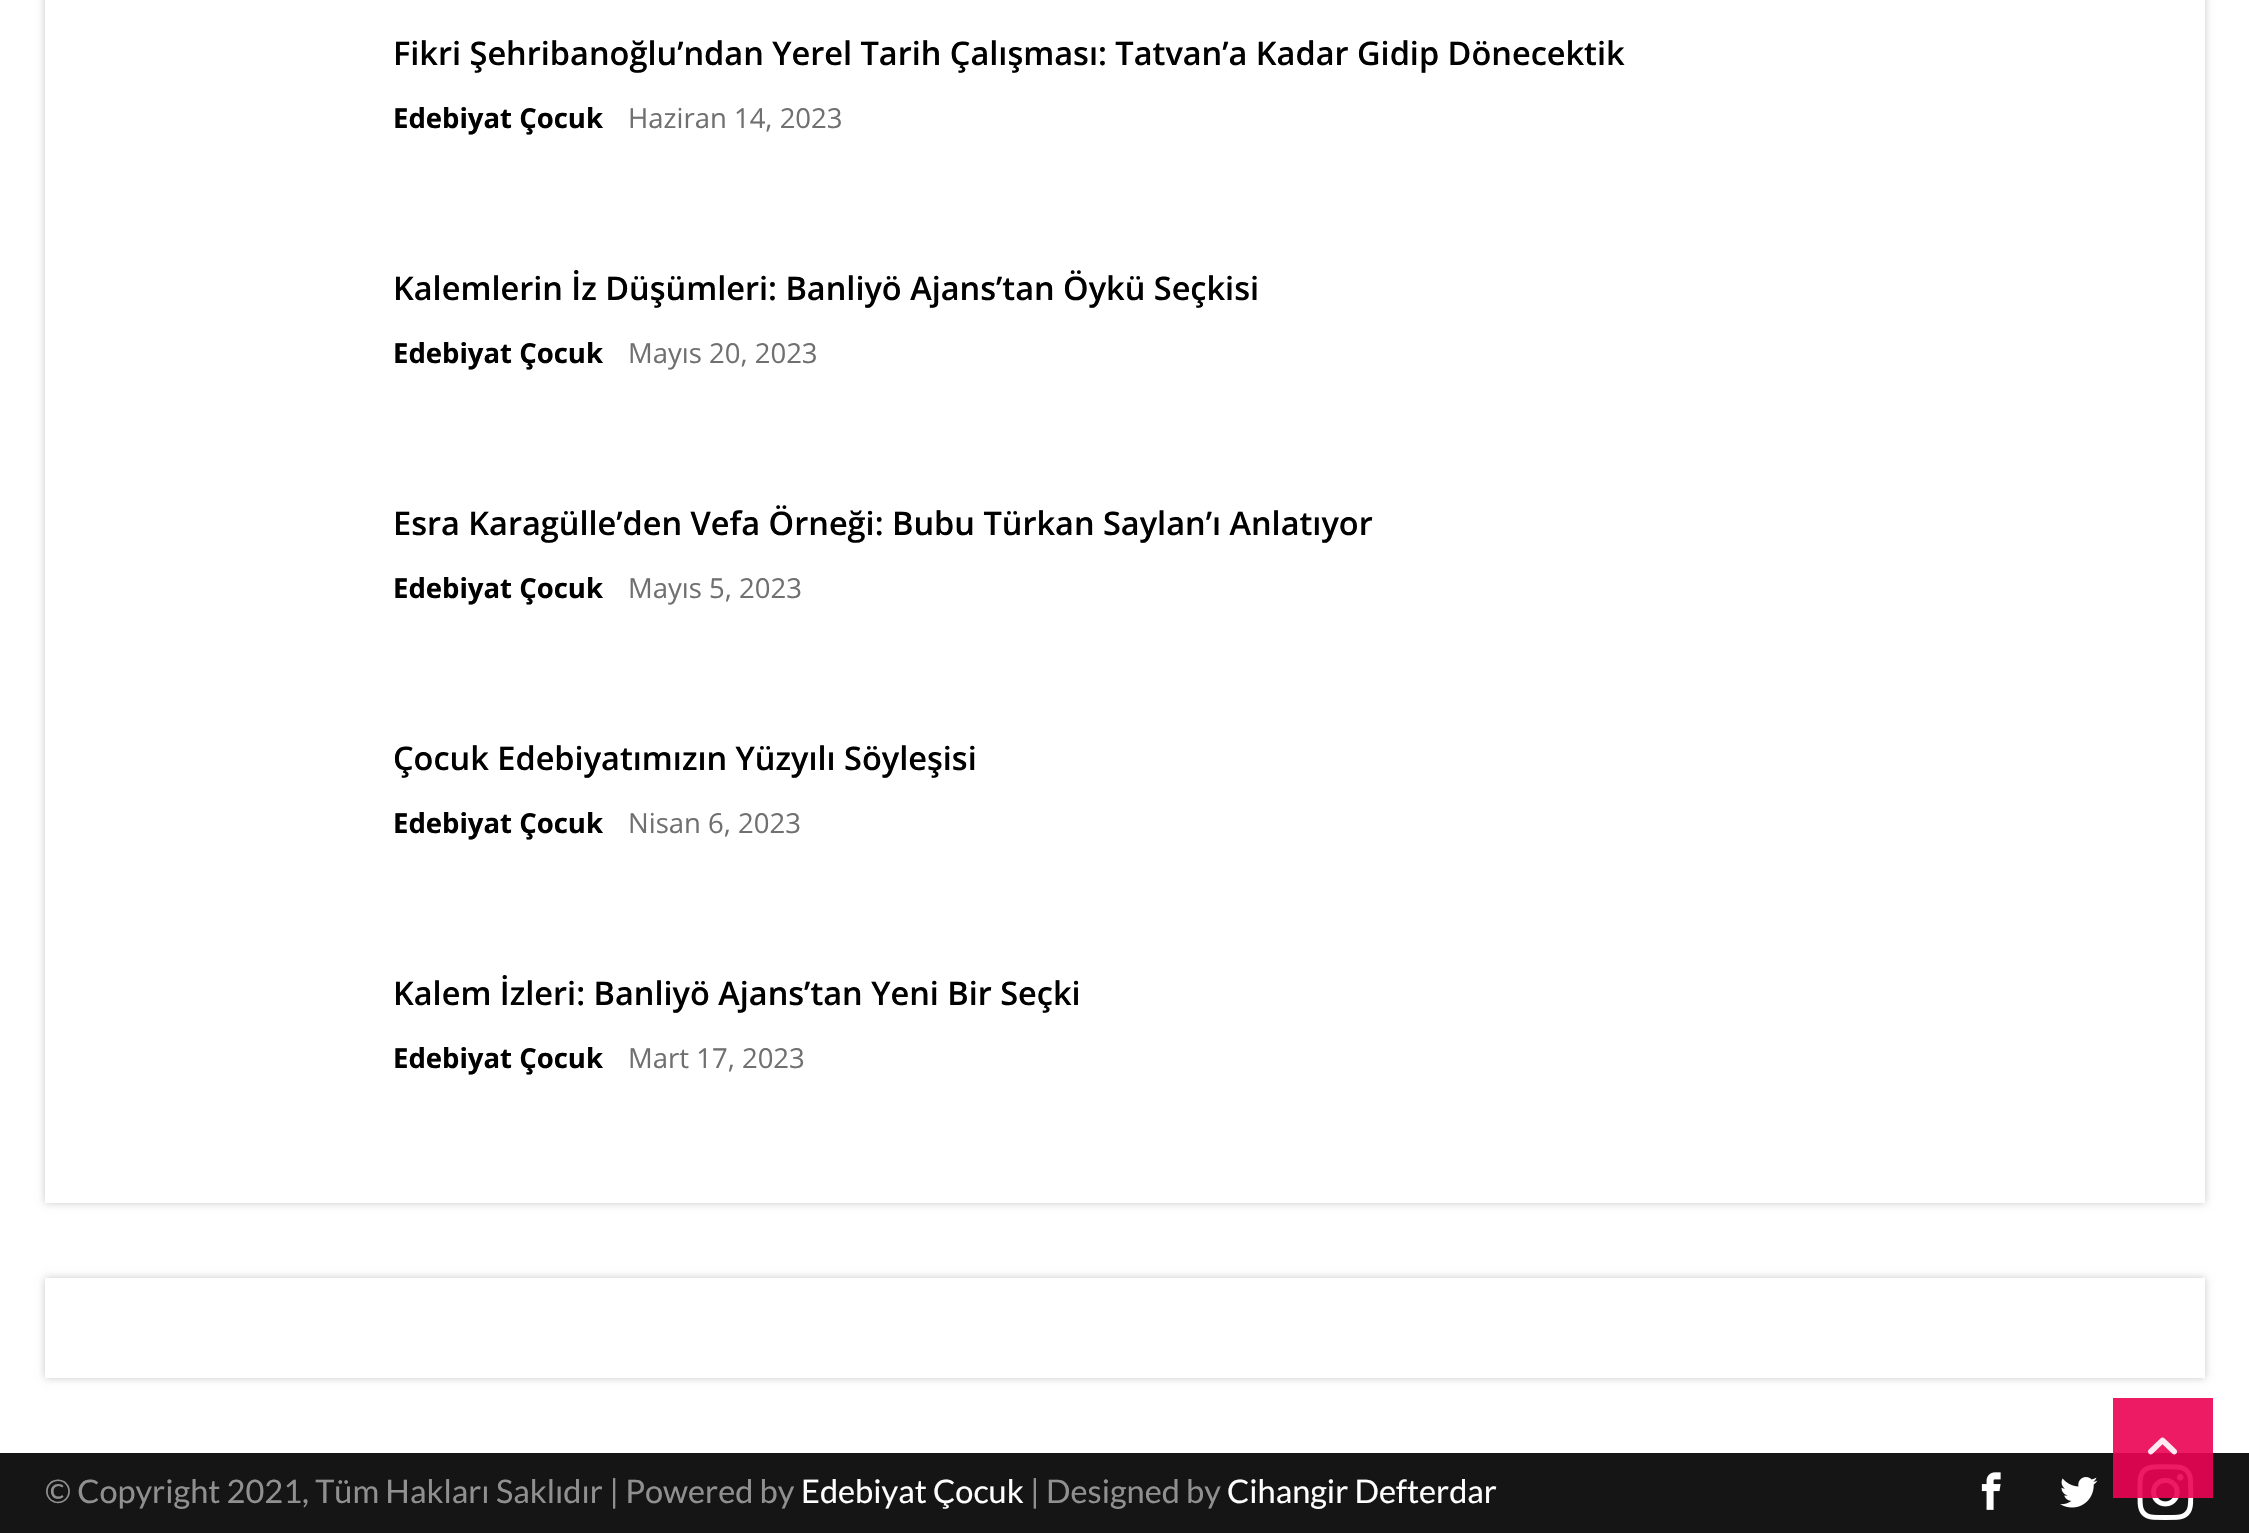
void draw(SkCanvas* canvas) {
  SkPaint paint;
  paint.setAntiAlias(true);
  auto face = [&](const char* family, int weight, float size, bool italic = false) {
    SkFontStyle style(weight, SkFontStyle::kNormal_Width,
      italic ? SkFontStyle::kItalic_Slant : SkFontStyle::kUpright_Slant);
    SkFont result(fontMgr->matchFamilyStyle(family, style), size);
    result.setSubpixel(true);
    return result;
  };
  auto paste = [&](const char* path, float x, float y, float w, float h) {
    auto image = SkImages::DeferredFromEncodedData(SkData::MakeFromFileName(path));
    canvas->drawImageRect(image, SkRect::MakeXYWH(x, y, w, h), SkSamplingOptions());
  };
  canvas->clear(0xffffffff);
  paint.setColor(0x36000000);
  paint.setMaskFilter(SkMaskFilter::MakeBlur(kNormal_SkBlurStyle, 4));
  canvas->drawRect(SkRect::MakeXYWH(45, -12, 2160, 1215), paint);
  paint.setMaskFilter(nullptr);
  paint.setColor(0xffffffff);
  canvas->drawRect(SkRect::MakeXYWH(45, 0, 2160, 1203), paint);
  paint.setColor(0x36000000);
  paint.setMaskFilter(SkMaskFilter::MakeBlur(kNormal_SkBlurStyle, 4));
  canvas->drawRect(SkRect::MakeXYWH(45, 1278, 2160, 100), paint);
  paint.setMaskFilter(nullptr);
  paint.setColor(0xffffffff);
  canvas->drawRect(SkRect::MakeXYWH(45, 1278, 2160, 100), paint);
  paint.setColor(0xff151515);
  canvas->drawRect(SkRect::MakeXYWH(0, 1453, 2249, 80), paint);
  paste("img/1.png", 1981, 1472, 20, 38);
  paste("img/2.png", 2060, 1477, 38, 31);
  paste("img/3.png", 2137, 1464, 57, 56);
  paint.setColor(0xe6ea0253);
  canvas->drawRect(SkRect::MakeXYWH(2113, 1398, 100, 100), paint);
  paste("img/4.png", 2148, 1437, 29, 18);
  auto f0 = face("Open Sans", 600, 32.5f);
  paint.setColor(0xff000000);
  canvas->drawString("Fikri Şehribanoğlu’ndan Yerel Tarih Çalışması: Tatvan’a Kadar Gidip Dönecektik", 393, 65, f0, paint);
  auto f1 = face("Open Sans", 700, 27.5f);
  canvas->drawString("Edebiyat Çocuk", 393, 128, f1, paint);
  auto f2 = face("Open Sans", 400, 27.5f);
  paint.setColor(0xff707070);
  canvas->drawString("Haziran 14, 2023", 628, 128, f2, paint);
  paint.setColor(0xff000000);
  canvas->drawString("Kalemlerin İz Düşümleri: Banliyö Ajans’tan Öykü Seçkisi", 393, 300, f0, paint);
  canvas->drawString("Edebiyat Çocuk", 393, 363, f1, paint);
  paint.setColor(0xff707070);
  canvas->drawString("Mayıs 20, 2023", 628, 363, f2, paint);
  paint.setColor(0xff000000);
  canvas->drawString("Esra Karagülle’den Vefa Örneği: Bubu Türkan Saylan’ı Anlatıyor", 393, 535, f0, paint);
  canvas->drawString("Edebiyat Çocuk", 393, 598, f1, paint);
  paint.setColor(0xff707070);
  canvas->drawString("Mayıs 5, 2023", 628, 598, f2, paint);
  paint.setColor(0xff000000);
  canvas->drawString("Çocuk Edebiyatımızın Yüzyılı Söyleşisi", 393, 770, f0, paint);
  canvas->drawString("Edebiyat Çocuk", 393, 833, f1, paint);
  paint.setColor(0xff707070);
  canvas->drawString("Nisan 6, 2023", 628, 833, f2, paint);
  paint.setColor(0xff000000);
  canvas->drawString("Kalem İzleri: Banliyö Ajans’tan Yeni Bir Seçki", 393, 1005, f0, paint);
  canvas->drawString("Edebiyat Çocuk", 393, 1068, f1, paint);
  paint.setColor(0xff707070);
  canvas->drawString("Mart 17, 2023", 628, 1068, f2, paint);
  auto f3 = face("Lato", 400, 32.5f);
  paint.setColor(0xff909090);
  canvas->drawString("© Copyright 2021, Tüm Hakları Saklıdır | Powered by", 45, 1503, f3, paint);
  paint.setColor(0xffffffff);
  canvas->drawString("Edebiyat Çocuk", 801, 1503, f3, paint);
  paint.setColor(0xff909090);
  canvas->drawString("| Designed by", 1030, 1503, f3, paint);
  paint.setColor(0xffffffff);
  canvas->drawString("Cihangir Defterdar", 1227, 1503, f3, paint);
}
